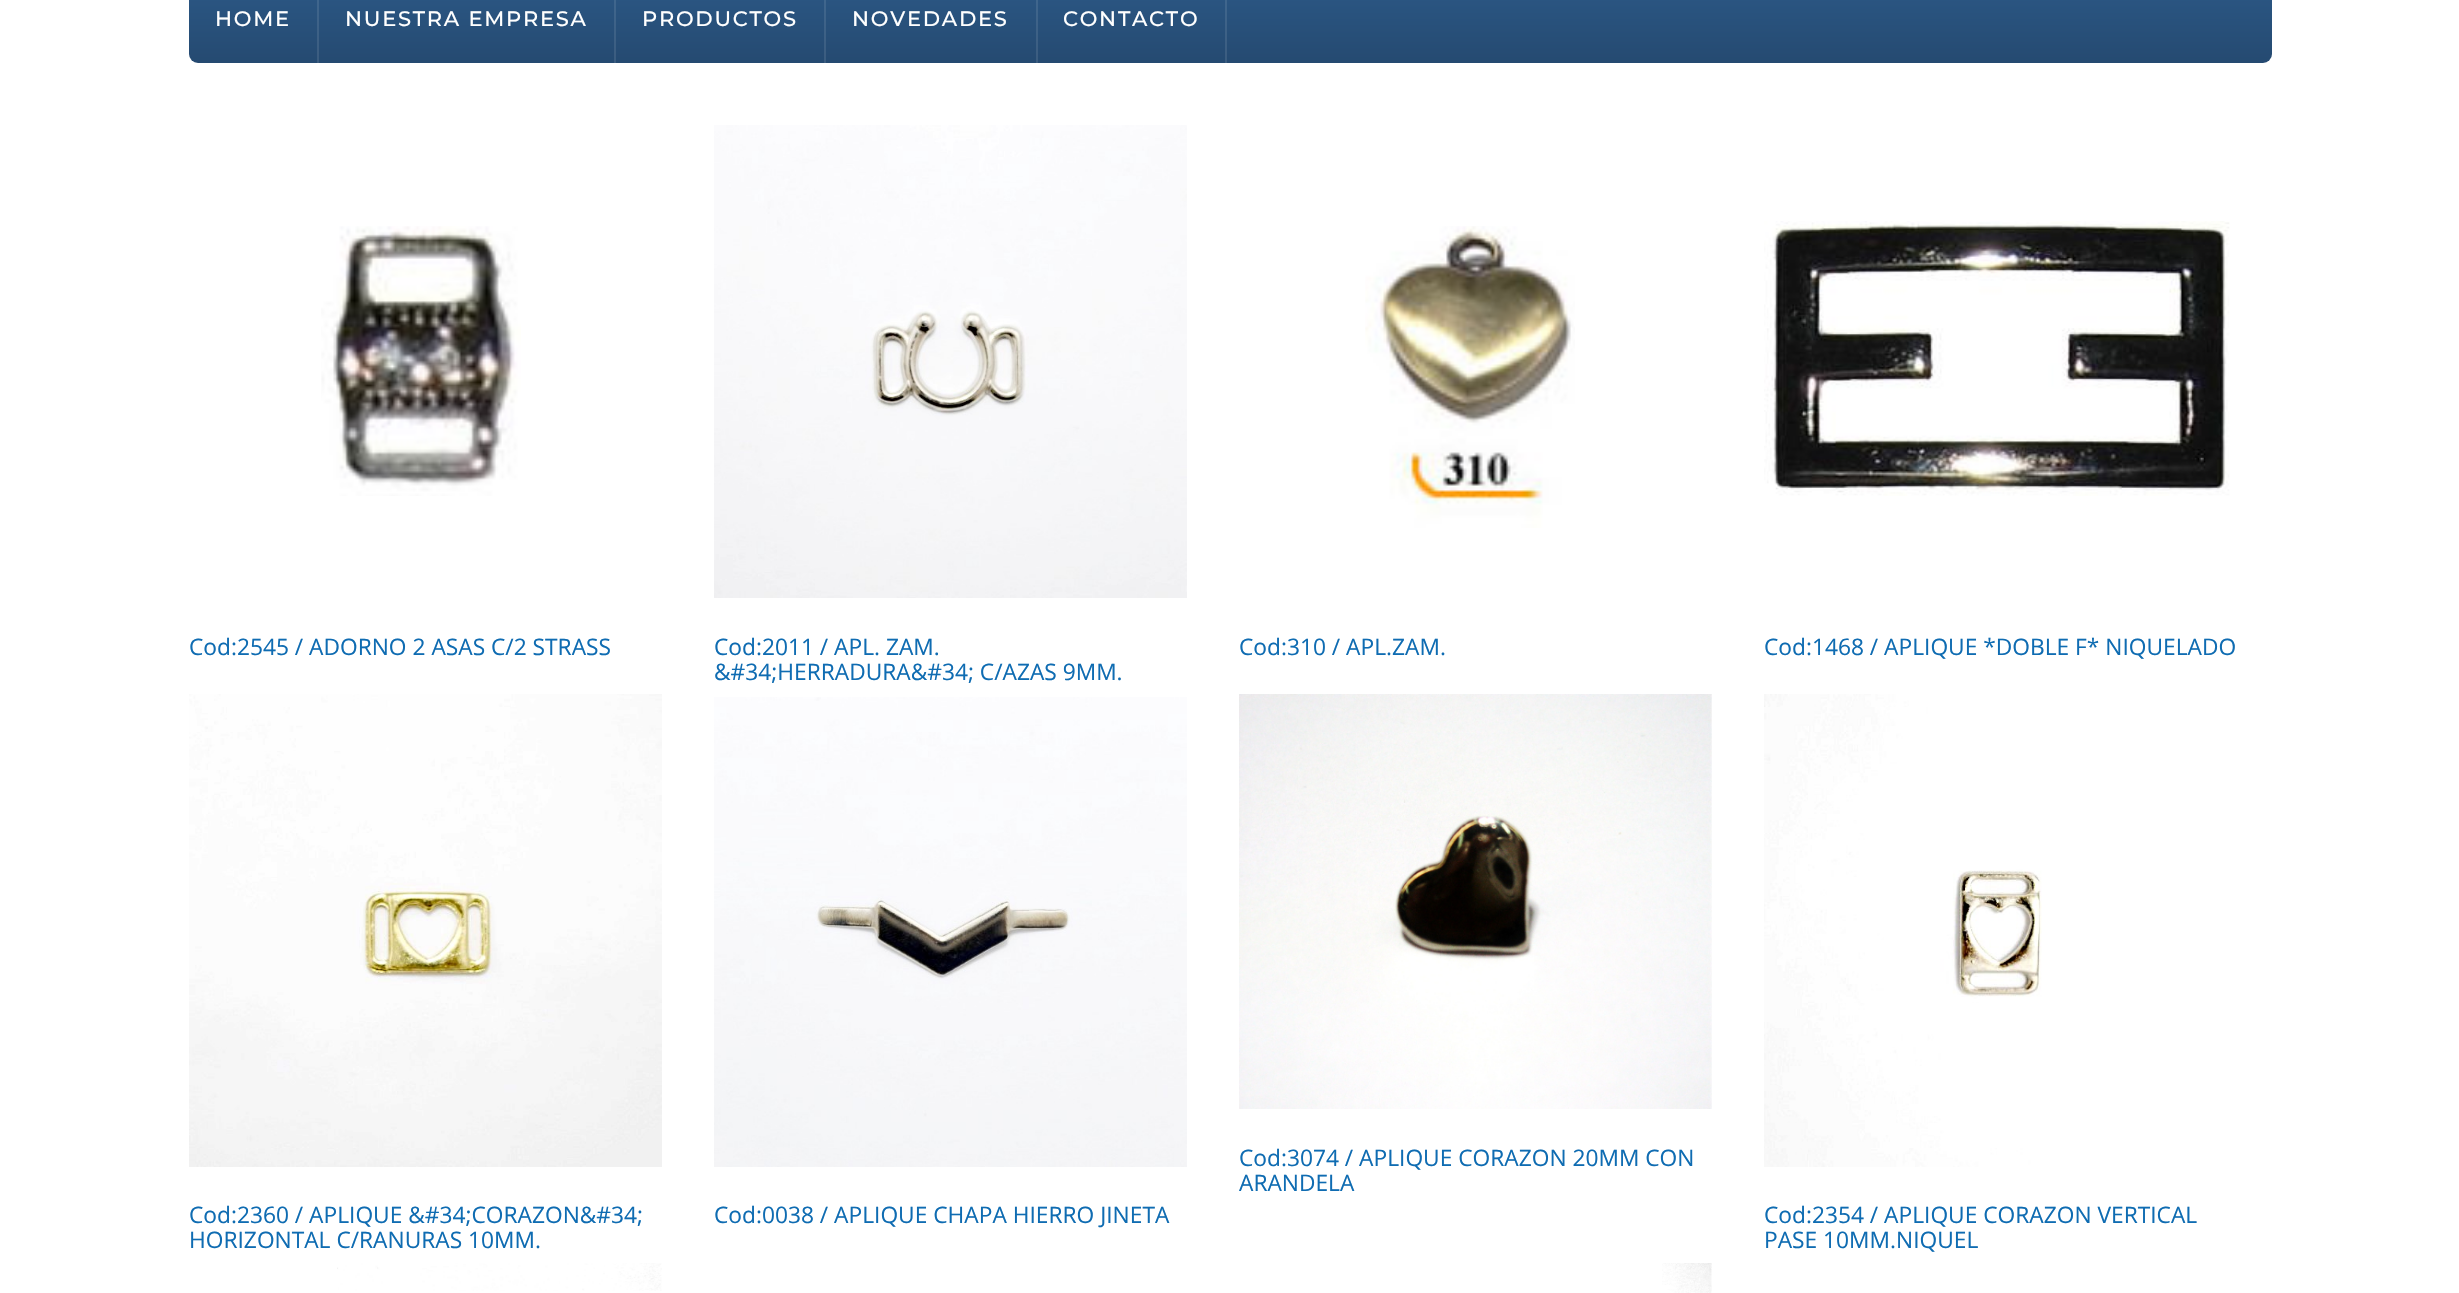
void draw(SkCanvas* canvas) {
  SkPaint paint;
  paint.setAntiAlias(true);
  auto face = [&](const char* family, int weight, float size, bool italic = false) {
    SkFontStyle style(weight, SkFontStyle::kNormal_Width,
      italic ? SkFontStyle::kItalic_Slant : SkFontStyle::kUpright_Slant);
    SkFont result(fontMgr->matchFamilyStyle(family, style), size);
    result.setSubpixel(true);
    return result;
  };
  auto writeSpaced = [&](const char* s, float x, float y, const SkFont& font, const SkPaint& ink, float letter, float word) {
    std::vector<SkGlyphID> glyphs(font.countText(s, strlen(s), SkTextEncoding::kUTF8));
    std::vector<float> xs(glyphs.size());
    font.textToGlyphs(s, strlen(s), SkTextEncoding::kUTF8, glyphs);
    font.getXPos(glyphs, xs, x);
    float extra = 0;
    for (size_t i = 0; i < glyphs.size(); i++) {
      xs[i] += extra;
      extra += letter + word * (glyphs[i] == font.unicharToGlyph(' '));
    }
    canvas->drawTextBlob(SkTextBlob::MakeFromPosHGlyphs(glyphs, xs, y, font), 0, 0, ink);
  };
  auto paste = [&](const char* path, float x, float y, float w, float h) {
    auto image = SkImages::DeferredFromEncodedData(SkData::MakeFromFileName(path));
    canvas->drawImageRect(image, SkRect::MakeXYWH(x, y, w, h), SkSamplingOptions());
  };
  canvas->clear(0xffffffff);
  {
    const SkColor colors[] = {0xff2c5987, 0xff254a71};
    const float stops[] = {0, 1};
    const SkPoint ends[] = {{1230, -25}, {1230, 63}};
    paint.setShader(SkGradientShader::MakeLinear(ends, colors, stops, 2, SkTileMode::kClamp));
    paint.setAlpha(255);
  }
  canvas->drawRoundRect(SkRect::MakeXYWH(189, -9, 2083, 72), 9, 9, paint);
  {
    const SkColor colors[] = {0xff416a93, 0xff3b5c7f};
    const float stops[] = {0, 1};
    const SkPoint ends[] = {{1230, -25}, {1230, 63}};
    paint.setShader(SkGradientShader::MakeLinear(ends, colors, stops, 2, SkTileMode::kClamp));
    paint.setAlpha(255);
  }
  canvas->drawRect(SkRect::MakeXYWH(1225, 0, 2, 63), paint);
  canvas->drawRect(SkRect::MakeXYWH(1036, 0, 2, 63), paint);
  canvas->drawRect(SkRect::MakeXYWH(824, 0, 2, 63), paint);
  canvas->drawRect(SkRect::MakeXYWH(614, 0, 2, 63), paint);
  canvas->drawRect(SkRect::MakeXYWH(317, 0, 2, 63), paint);
  paste("img/1.png", 321, 226, 200, 270);
  paste("img/2.png", 714, 125, 473, 473);
  paste("img/3.png", 1365, 226, 210, 302);
  paste("img/4.png", 1764, 221, 466, 275);
  paste("img/5.png", 1239, 694, 473, 415);
  paste("img/6.png", 189, 694, 473, 473);
  paste("img/7.png", 714, 697, 473, 470);
  paste("img/8.png", 1764, 694, 278, 473);
  paste("img/9.png", 337, 1263, 325, 28);
  paste("img/10.png", 1662, 1263, 50, 30);
  auto f0 = face("Montserrat", 500, 21);
  paint.setShader(nullptr);
  paint.setColor(0xffffffff);
  {
    const struct { const char* s; float x, y; } items[] = {
      {"HOME", 215, 26},
      {"NUESTRA EMPRESA", 345, 26},
      {"PRODUCTOS", 642, 26},
      {"NOVEDADES", 852, 26},
      {"CONTACTO", 1063, 26},
    };
    for (auto [s, x, y] : items) {
      writeSpaced(s, x, y, f0, paint, 1.75f, 0);
    }
  }
  auto f1 = face("Open Sans", 400, 22.75f);
  paint.setColor(0xff0f6cb2);
  {
    const struct { const char* s; float x, y; } items[] = {
      {"Cod:2545 / ADORNO 2 ASAS C/2 STRASS", 189, 655},
      {"Cod:2011 / APL. ZAM.", 714, 655},
      {"&#34;HERRADURA&#34; C/AZAS 9MM.", 714, 680},
      {"Cod:310 / APL.ZAM.", 1239, 655},
      {"Cod:1468 / APLIQUE *DOBLE F* NIQUELADO", 1764, 655},
      {"Cod:3074 / APLIQUE CORAZON 20MM CON", 1239, 1166},
      {"ARANDELA", 1239, 1191},
      {"Cod:2360 / APLIQUE &#34;CORAZON&#34;", 189, 1223},
      {"HORIZONTAL C/RANURAS 10MM.", 189, 1248},
      {"Cod:0038 / APLIQUE CHAPA HIERRO JINETA", 714, 1223},
      {"Cod:2354 / APLIQUE CORAZON VERTICAL", 1764, 1223},
      {"PASE 10MM.NIQUEL", 1764, 1248},
    };
    for (auto [s, x, y] : items) {
      canvas->drawString(s, x, y, f1, paint);
    }
  }
}
